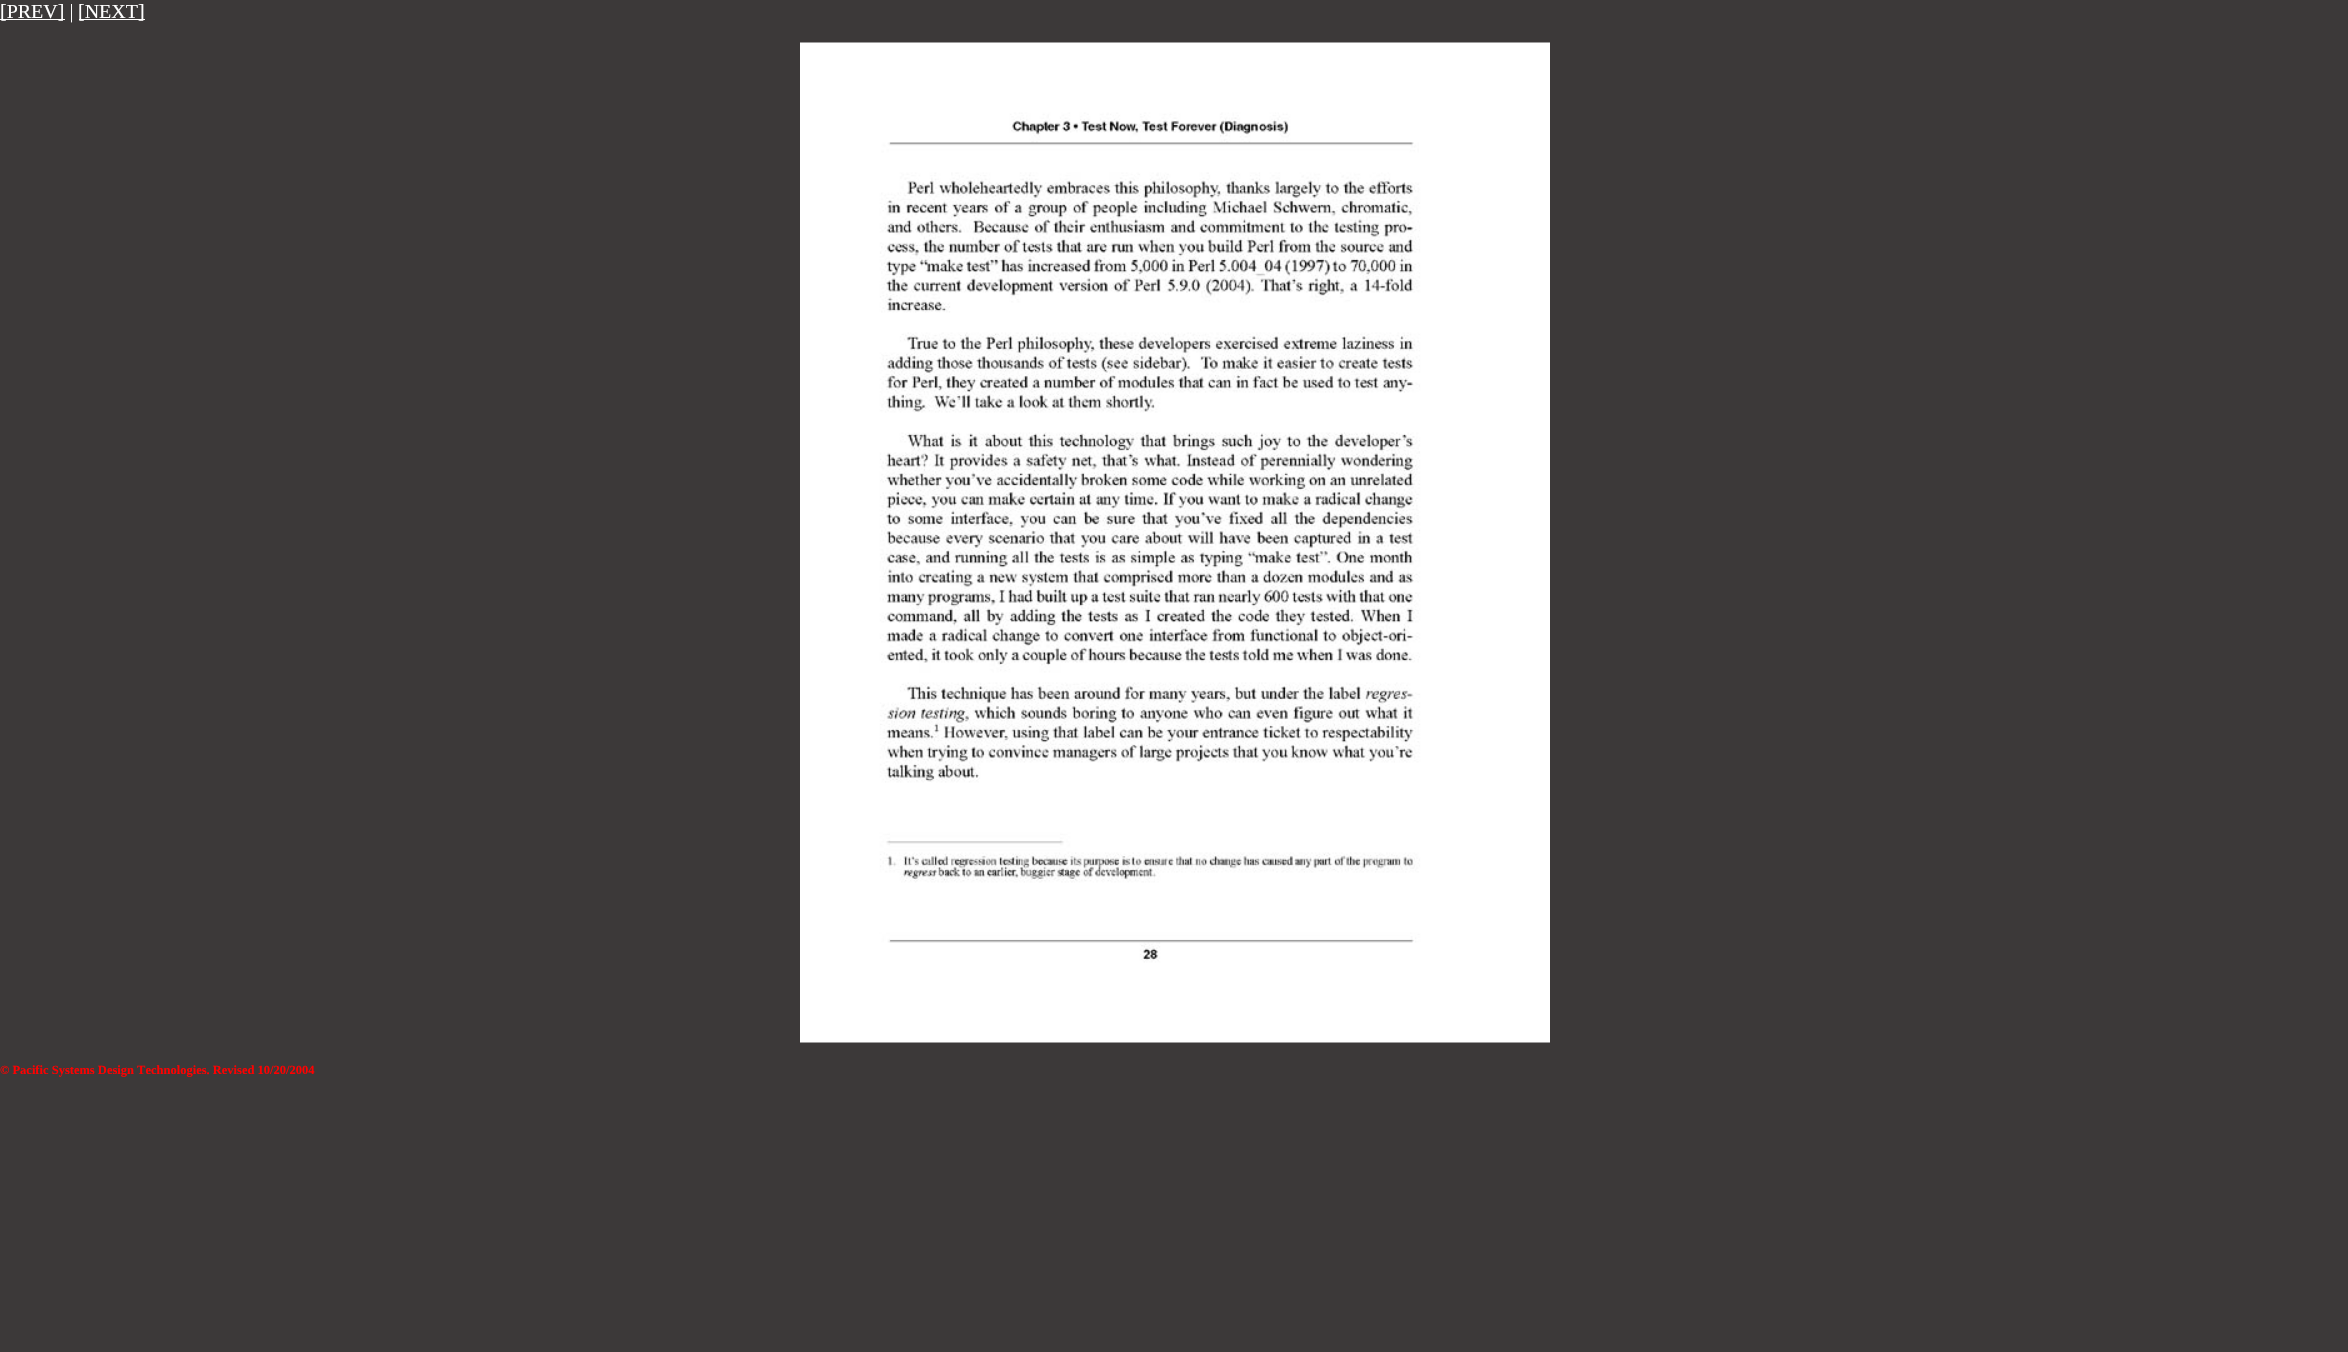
void draw(SkCanvas* canvas) {
  SkPaint paint;
  paint.setAntiAlias(true);
  auto face = [&](const char* family, int weight, float size, bool italic = false) {
    SkFontStyle style(weight, SkFontStyle::kNormal_Width,
      italic ? SkFontStyle::kItalic_Slant : SkFontStyle::kUpright_Slant);
    SkFont result(fontMgr->matchFamilyStyle(family, style), size);
    result.setSubpixel(true);
    return result;
  };
  auto paste = [&](const char* path, float x, float y, float w, float h) {
    auto image = SkImages::DeferredFromEncodedData(SkData::MakeFromFileName(path));
    canvas->drawImageRect(image, SkRect::MakeXYWH(x, y, w, h), SkSamplingOptions());
  };
  canvas->clear(0xff3c3939);
  paint.setColor(0xffffffff);
  canvas->drawRect(SkRect::MakeXYWH(0, 19, 65, 1), paint);
  canvas->drawRect(SkRect::MakeXYWH(79, 19, 66, 1), paint);
  paste("img/1.png", 800, 42, 750, 1001);
  auto f0 = face("Liberation Serif", 400, 20);
  canvas->drawString("[PREV] |", 0, 18, f0, paint);
  canvas->drawString("[NEXT]", 78, 18, f0, paint);
  auto f1 = face("Liberation Serif", 700, 12.5f);
  paint.setColor(0xffff0000);
  canvas->drawString("© Pacific Systems Design Technologies. Revised 10/20/2004", 0, 1074, f1, paint);
}
